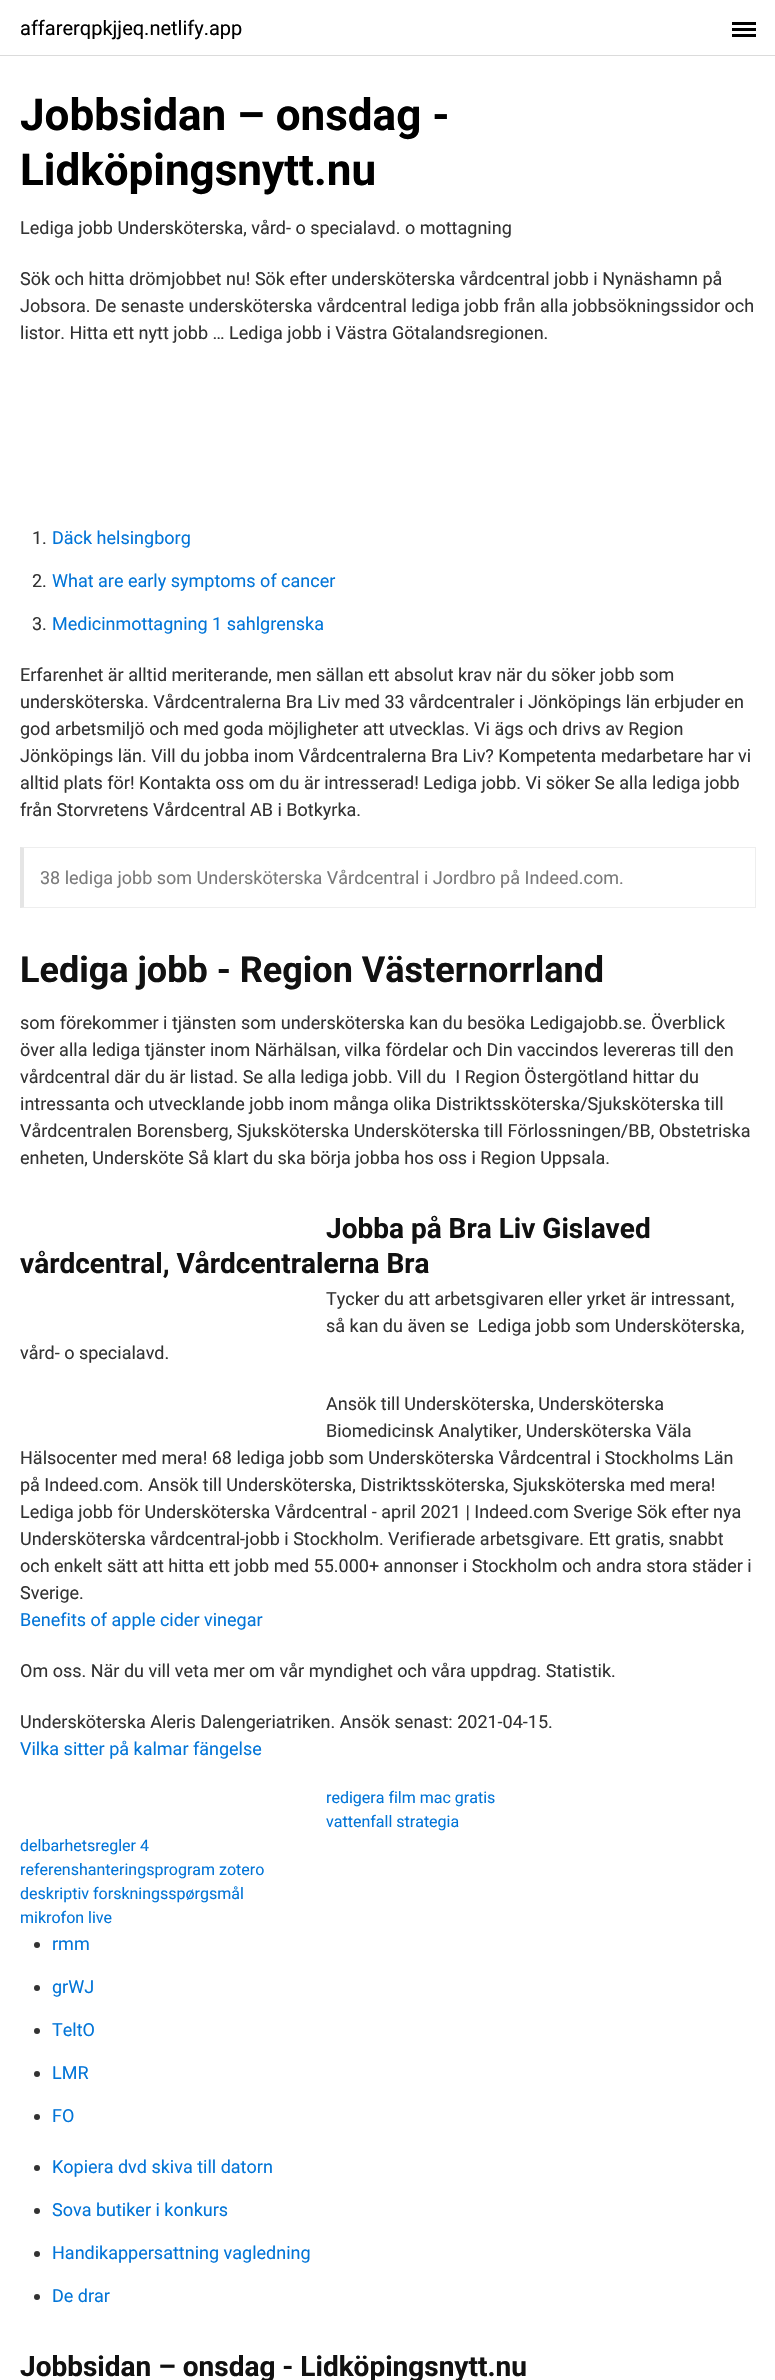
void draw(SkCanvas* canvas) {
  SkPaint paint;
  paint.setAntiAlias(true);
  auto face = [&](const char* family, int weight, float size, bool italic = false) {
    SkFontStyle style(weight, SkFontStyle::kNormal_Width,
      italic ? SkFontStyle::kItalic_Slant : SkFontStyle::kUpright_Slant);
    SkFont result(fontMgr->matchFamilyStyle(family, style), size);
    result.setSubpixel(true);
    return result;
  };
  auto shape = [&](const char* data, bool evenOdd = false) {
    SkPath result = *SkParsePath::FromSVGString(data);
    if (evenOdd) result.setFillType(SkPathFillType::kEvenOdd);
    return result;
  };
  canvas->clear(0xffffffff);
  {
    const struct { float x, y, w, h; SkColor color; } items[] = {
      {0, 55, 775, 1, 0xffdbdbdb},
      {732, 28, 24, 3, 0xff000000},
      {732, 22, 24, 3, 0xff000000},
      {732, 34, 24, 3, 0xff000000},
    };
    for (auto [x, y, w, h, color] : items) {
      paint.setColor(color);
      canvas->drawRect(SkRect::MakeXYWH(x, y, w, h), paint);
    }
  }
  paint.setColor(0xffeeeeee);
  canvas->drawPath(shape("M20 847H756L755 848H24Z"), paint);
  canvas->drawRect(SkRect::MakeXYWH(755, 847, 1, 61), paint);
  canvas->drawPath(shape("M756 908H20L24 907H755Z"), paint);
  paint.setColor(0x1a000000);
  canvas->drawPath(shape("M20 908V847L24 848V907Z"), paint);
  paint.setColor(0xff333333);
  canvas->drawCircle(37, 1945, 3, paint);
  canvas->drawCircle(37, 1988, 3, paint);
  canvas->drawCircle(37, 2031, 3, paint);
  canvas->drawCircle(37, 2074, 3, paint);
  canvas->drawCircle(37, 2117, 3, paint);
  canvas->drawCircle(37, 2168, 3, paint);
  canvas->drawCircle(37, 2211, 3, paint);
  canvas->drawCircle(37, 2254, 3, paint);
  canvas->drawCircle(37, 2297, 3, paint);
  auto f0 = face("Roboto", 400, 20);
  paint.setColor(0xff000000);
  canvas->drawString("affarerqpkjjeq.netlify.app", 20, 35, f0, paint);
  auto f1 = face("Roboto", 700, 44);
  canvas->drawString("Jobbsidan – onsdag -", 20, 130, f1, paint);
  canvas->drawString("Lidköpingsnytt.nu", 20, 185, f1, paint);
  auto f2 = face("Roboto", 400, 18);
  paint.setColor(0xff333333);
  {
    const struct { const char* s; float x, y; } items[] = {
      {"Lediga jobb Undersköterska, vård- o specialavd. o mottagning", 20, 234},
      {"Sök och hitta drömjobbet nu! Sök efter undersköterska vårdcentral jobb i Nynäshamn på", 20, 285},
      {"Jobsora. De senaste undersköterska vårdcentral lediga jobb från alla jobbsökningssidor och", 20, 312},
      {"listor. Hitta ett nytt jobb … Lediga jobb i Västra Götalandsregionen.", 20, 339},
      {"1.", 32, 544},
    };
    for (auto [s, x, y] : items) {
      canvas->drawString(s, x, y, f2, paint);
    }
  }
  paint.setColor(0xff0275d8);
  canvas->drawString("Däck helsingborg", 52, 544, f2, paint);
  paint.setColor(0xff333333);
  canvas->drawString("2.", 32, 587, f2, paint);
  paint.setColor(0xff0275d8);
  canvas->drawString("What are early symptoms of cancer", 52, 587, f2, paint);
  paint.setColor(0xff333333);
  canvas->drawString("3.", 32, 630, f2, paint);
  paint.setColor(0xff0275d8);
  canvas->drawString("Medicinmottagning 1 sahlgrenska", 52, 630, f2, paint);
  paint.setColor(0xff333333);
  {
    const struct { const char* s; float x, y; } items[] = {
      {"Erfarenhet är alltid meriterande, men sällan ett absolut krav när du söker jobb som", 20, 681},
      {"undersköterska. Vårdcentralerna Bra Liv med 33 vårdcentraler i Jönköpings län erbjuder en", 20, 708},
      {"god arbetsmiljö och med goda möjligheter att utvecklas. Vi ägs och drivs av Region", 20, 735},
      {"Jönköpings län. Vill du jobba inom Vårdcentralerna Bra Liv? Kompetenta medarbetare har vi", 20, 762},
      {"alltid plats för! Kontakta oss om du är intresserad! Lediga jobb. Vi söker Se alla lediga jobb", 20, 789},
      {"från Storvretens Vårdcentral AB i Botkyrka.", 20, 816},
    };
    for (auto [s, x, y] : items) {
      canvas->drawString(s, x, y, f2, paint);
    }
  }
  paint.setColor(0xff7a7a7a);
  canvas->drawString("38 lediga jobb som Undersköterska Vårdcentral i Jordbro på Indeed.com.", 40, 884, f2, paint);
  auto f3 = face("Roboto", 700, 36);
  paint.setColor(0xff111111);
  canvas->drawString("Lediga jobb - Region Västernorrland", 20, 982, f3, paint);
  paint.setColor(0xff333333);
  {
    const struct { const char* s; float x, y; } items[] = {
      {"som förekommer i tjänsten som undersköterska kan du besöka Ledigajobb.se. Överblick", 20, 1029},
      {"över alla lediga tjänster inom Närhälsan, vilka fördelar och Din vaccindos levereras till den", 20, 1056},
      {"vårdcentral där du är listad. Se alla lediga jobb. Vill du  I Region Östergötland hittar du", 20, 1083},
      {"intressanta och utvecklande jobb inom många olika Distriktssköterska/Sjuksköterska till", 20, 1110},
      {"Vårdcentralen Borensberg, Sjuksköterska Undersköterska till Förlossningen/BB, Obstetriska", 20, 1137},
      {"enheten, Undersköte Så klart du ska börja jobba hos oss i Region Uppsala.", 20, 1164},
    };
    for (auto [s, x, y] : items) {
      canvas->drawString(s, x, y, f2, paint);
    }
  }
  auto f4 = face("Roboto", 700, 28);
  paint.setColor(0xff111111);
  canvas->drawString("Jobba på Bra Liv Gislaved", 326, 1238, f4, paint);
  canvas->drawString("vårdcentral, Vårdcentralerna Bra", 20, 1273, f4, paint);
  paint.setColor(0xff333333);
  {
    const struct { const char* s; float x, y; } items[] = {
      {"Tycker du att arbetsgivaren eller yrket är intressant,", 326, 1305},
      {"så kan du även se  Lediga jobb som Undersköterska,", 326, 1332},
      {"vård- o specialavd.", 20, 1359},
      {"Ansök till Undersköterska, Undersköterska", 326, 1410},
      {"Biomedicinsk Analytiker, Undersköterska Väla", 326, 1437},
      {"Hälsocenter med mera! 68 lediga jobb som Undersköterska Vårdcentral i Stockholms Län", 20, 1464},
      {"på Indeed.com. Ansök till Undersköterska, Distriktssköterska, Sjuksköterska med mera!", 20, 1491},
      {"Lediga jobb för Undersköterska Vårdcentral - april 2021 | Indeed.com Sverige Sök efter nya", 20, 1518},
      {"Undersköterska vårdcentral-jobb i Stockholm. Verifierade arbetsgivare. Ett gratis, snabbt", 20, 1545},
      {"och enkelt sätt att hitta ett jobb med 55.000+ annonser i Stockholm och andra stora städer i", 20, 1572},
      {"Sverige.", 20, 1599},
    };
    for (auto [s, x, y] : items) {
      canvas->drawString(s, x, y, f2, paint);
    }
  }
  paint.setColor(0xff0275d8);
  canvas->drawString("Benefits of apple cider vinegar", 20, 1626, f2, paint);
  paint.setColor(0xff333333);
  canvas->drawString("Om oss. När du vill veta mer om vår myndighet och våra uppdrag. Statistik.", 20, 1677, f2, paint);
  canvas->drawString("Undersköterska Aleris Dalengeriatriken. Ansök senast: 2021-04-15.", 20, 1728, f2, paint);
  paint.setColor(0xff0275d8);
  canvas->drawString("Vilka sitter på kalmar fängelse", 20, 1755, f2, paint);
  auto f5 = face("Roboto", 400, 16);
  {
    const struct { const char* s; float x, y; } items[] = {
      {"redigera film mac gratis", 326, 1803},
      {"vattenfall strategia", 326, 1827},
      {"delbarhetsregler 4", 20, 1851},
      {"referenshanteringsprogram zotero", 20, 1875},
      {"deskriptiv forskningsspørgsmål", 20, 1899},
      {"mikrofon live", 20, 1923},
    };
    for (auto [s, x, y] : items) {
      canvas->drawString(s, x, y, f5, paint);
    }
  }
  {
    const struct { const char* s; float x, y; } items[] = {
      {"rmm", 52, 1950},
      {"grWJ", 52, 1993},
      {"TeltO", 52, 2036},
      {"LMR", 52, 2079},
      {"FO", 52, 2122},
      {"Kopiera dvd skiva till datorn", 52, 2173},
      {"Sova butiker i konkurs", 52, 2216},
      {"Handikappersattning vagledning", 52, 2259},
      {"De drar", 52, 2302},
    };
    for (auto [s, x, y] : items) {
      canvas->drawString(s, x, y, f2, paint);
    }
  }
  paint.setColor(0xff111111);
  canvas->drawString("Jobbsidan – onsdag - Lidköpingsnytt.nu", 20, 2376, f4, paint);
}
